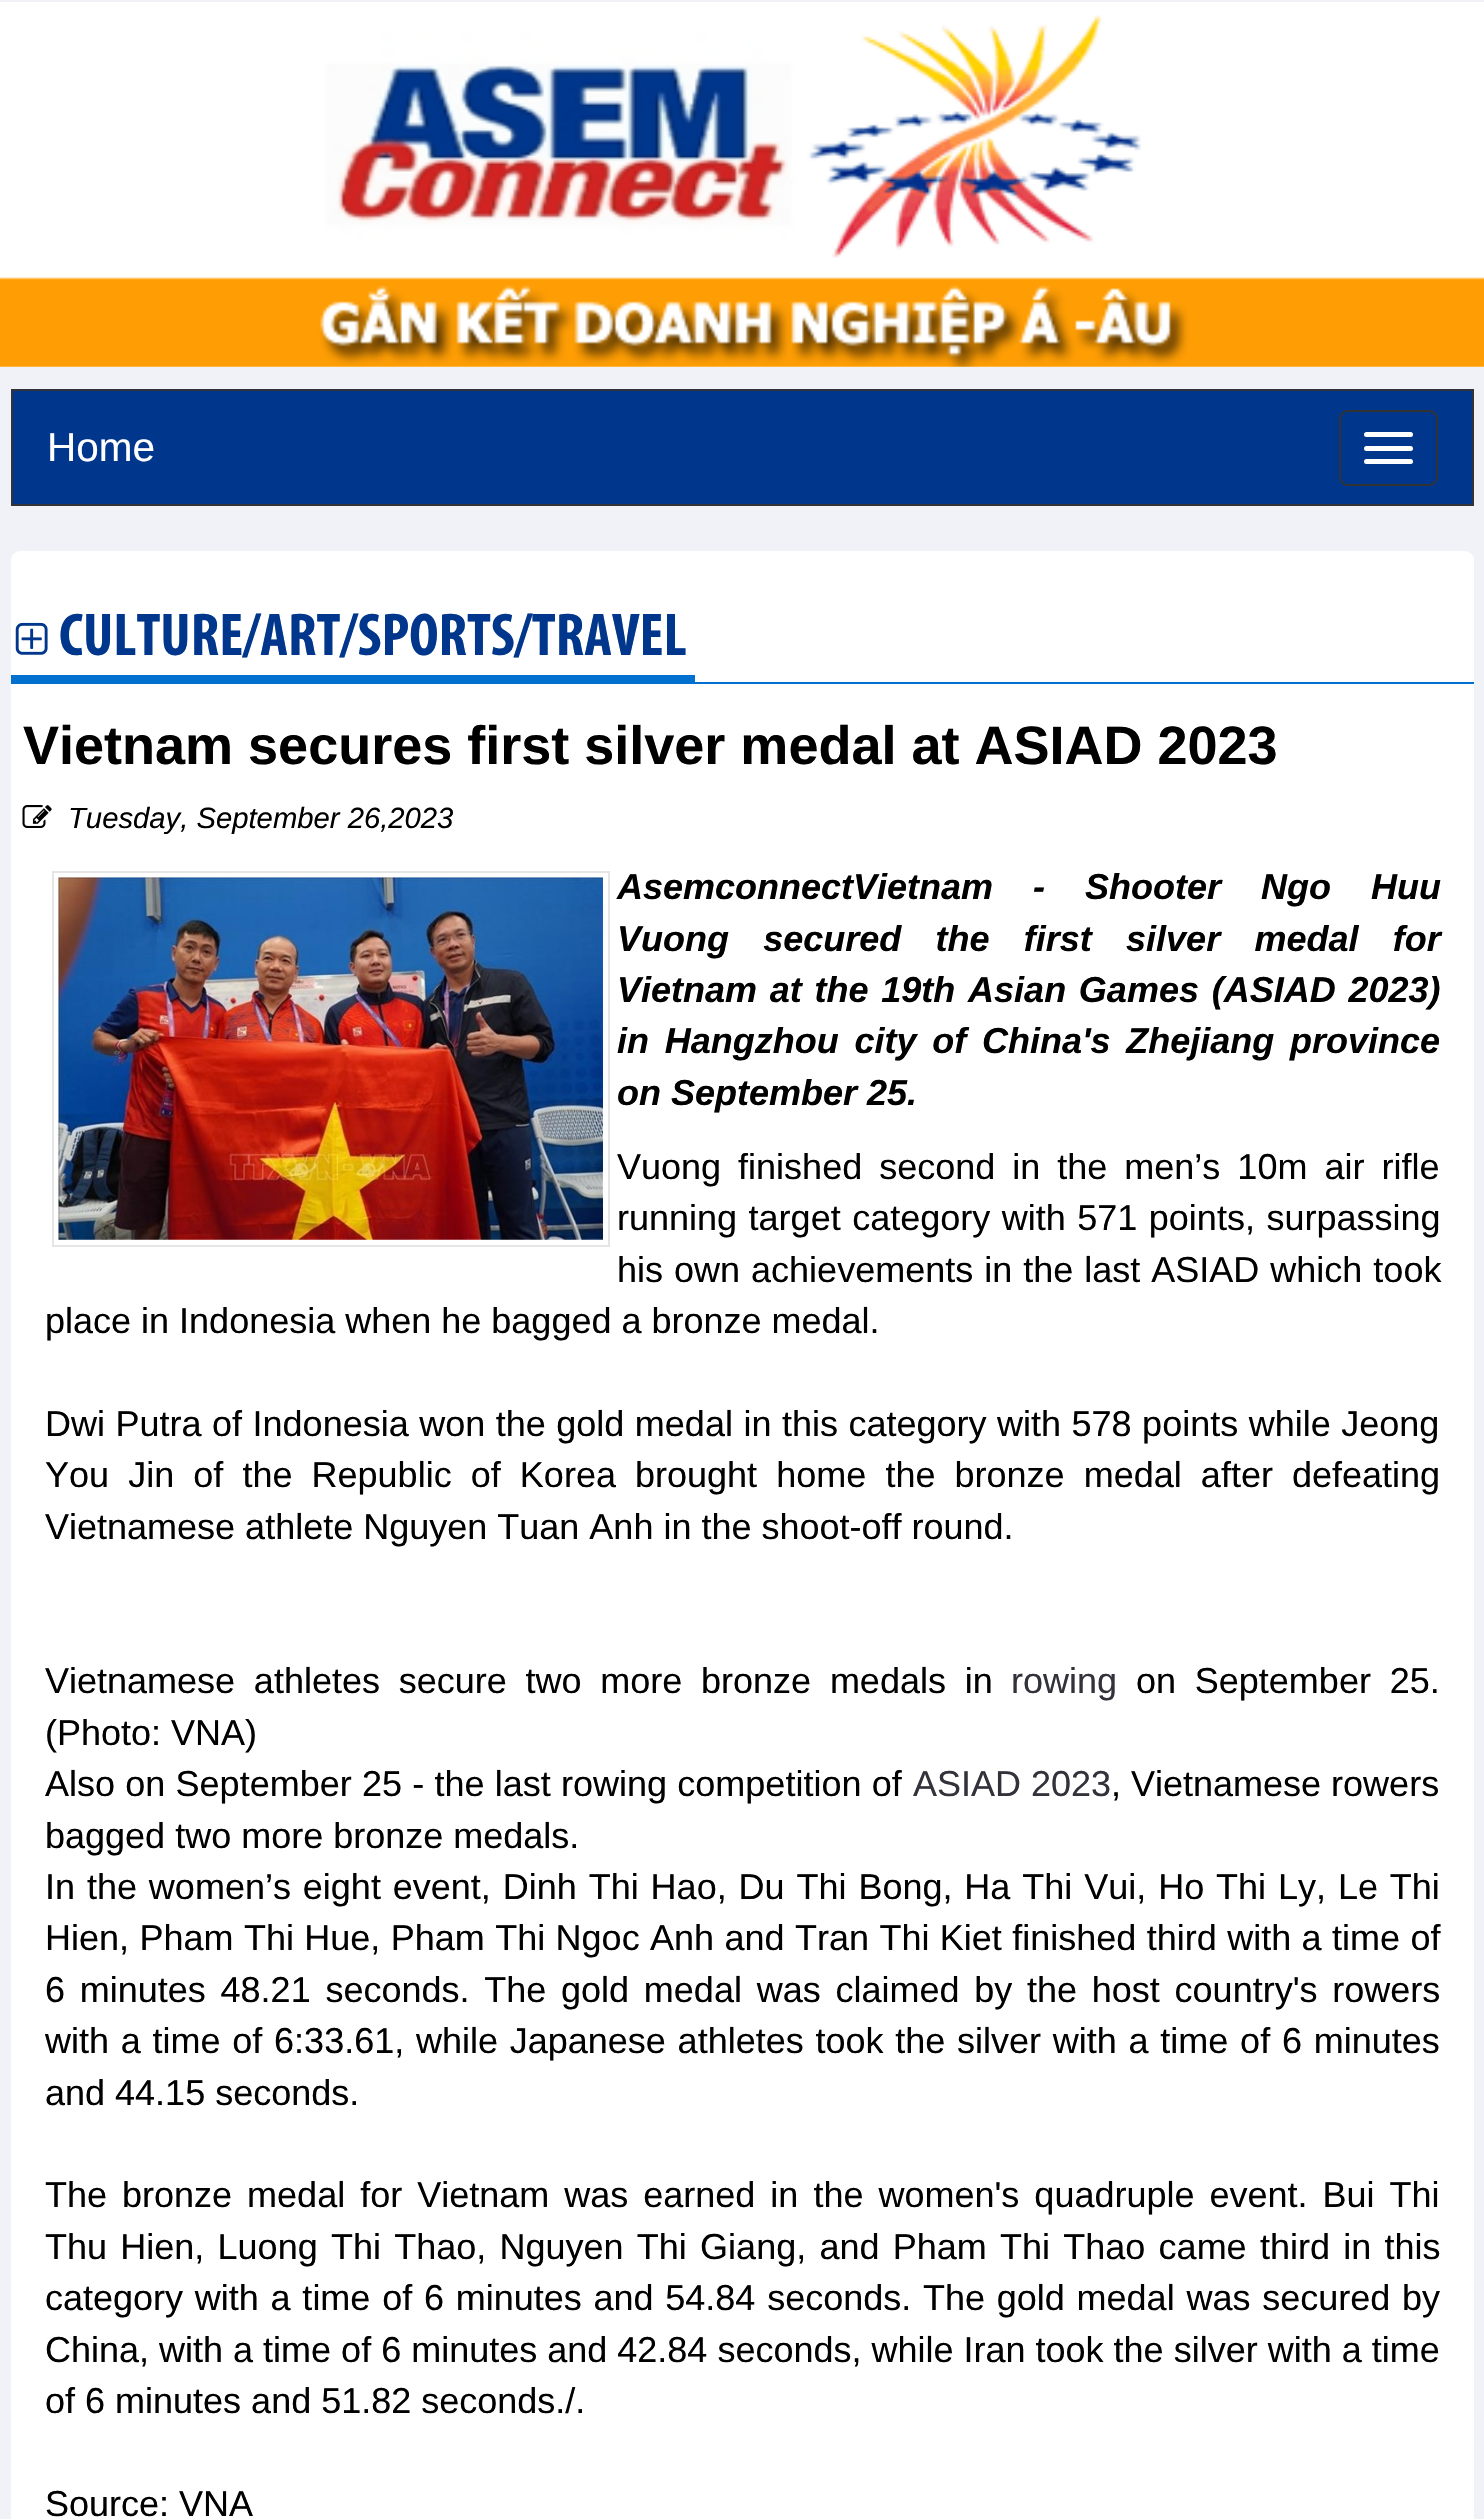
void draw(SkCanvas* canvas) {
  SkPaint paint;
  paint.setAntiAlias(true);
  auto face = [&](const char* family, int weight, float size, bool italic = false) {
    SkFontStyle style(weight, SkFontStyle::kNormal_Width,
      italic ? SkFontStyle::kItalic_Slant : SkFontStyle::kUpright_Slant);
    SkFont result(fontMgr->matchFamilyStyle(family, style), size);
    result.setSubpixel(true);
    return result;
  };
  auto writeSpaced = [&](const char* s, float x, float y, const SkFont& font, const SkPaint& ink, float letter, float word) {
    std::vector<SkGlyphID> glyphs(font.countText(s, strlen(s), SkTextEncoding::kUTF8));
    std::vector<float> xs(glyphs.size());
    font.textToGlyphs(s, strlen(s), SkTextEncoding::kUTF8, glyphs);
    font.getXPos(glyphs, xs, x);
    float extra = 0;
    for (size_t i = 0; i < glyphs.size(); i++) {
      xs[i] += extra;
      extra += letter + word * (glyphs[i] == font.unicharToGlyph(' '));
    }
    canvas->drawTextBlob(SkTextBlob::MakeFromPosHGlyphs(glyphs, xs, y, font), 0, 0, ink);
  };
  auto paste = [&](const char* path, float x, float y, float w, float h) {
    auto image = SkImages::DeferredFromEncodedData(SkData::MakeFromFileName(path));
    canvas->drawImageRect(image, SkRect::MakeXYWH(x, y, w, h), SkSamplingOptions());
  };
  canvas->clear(0xfff1f2f7);
  paint.setColor(0xffffffff);
  canvas->drawRect(SkRect::MakeXYWH(0, 2, 1484, 365), paint);
  paste("img/1.png", 0, 15, 1484, 352);
  paint.setColor(0xff00368c);
  canvas->drawRect(SkRect::MakeXYWH(12, 390, 1461, 115), paint);
  paint.setStroke(true);
  paint.setStrokeWidth(2);
  paint.setColor(0xff32323a);
  canvas->drawRect(SkRect::MakeXYWH(12, 390, 1461, 115), paint);
  paint.setColor(0xff333333);
  canvas->drawRoundRect(SkRect::MakeXYWH(1340, 411, 97, 74), 8, 8, paint);
  paint.setStroke(false);
  paint.setColor(0xffffffff);
  canvas->drawRoundRect(SkRect::MakeXYWH(1364, 432, 49, 5), 2.5f, 2.5f, paint);
  canvas->drawRoundRect(SkRect::MakeXYWH(1364, 446, 49, 5), 2.5f, 2.5f, paint);
  canvas->drawRoundRect(SkRect::MakeXYWH(1364, 459, 49, 5), 2.5f, 2.5f, paint);
  canvas->drawRoundRect(SkRect::MakeXYWH(11, 551, 1463, 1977), 9, 9, paint);
  paint.setColor(0xff0270ce);
  canvas->drawRect(SkRect::MakeXYWH(11, 682, 1463, 2), paint);
  canvas->drawRect(SkRect::MakeXYWH(11, 675, 684, 7), paint);
  paste("img/2.png", 15, 622, 33, 33);
  paste("img/3.png", 22, 805, 30, 23);
  paint.setStroke(true);
  paint.setColor(0xffe5e5e5);
  canvas->drawRect(SkRect::MakeXYWH(53, 872, 556, 374), paint);
  paste("img/4.png", 58, 877, 545, 363);
  auto f0 = face("Liberation Sans", 400, 40.5f);
  paint.setStroke(false);
  paint.setColor(0xffffffff);
  canvas->drawString("Home", 47, 461, f0, paint);
  auto f1 = face("Myriad", 700, 60.75f);
  paint.setColor(0xff00368c);
  canvas->drawString("CULTURE/ART/SPORTS/TRAVEL", 59, 655, f1, paint);
  auto f2 = face("Liberation Sans", 700, 54);
  paint.setColor(0xff000000);
  canvas->drawString("Vietnam secures first silver medal at ASIAD 2023", 23, 764, f2, paint);
  auto f3 = face("Liberation Sans", 400, 29.25f, true);
  canvas->drawString("Tuesday, September 26,2023", 68, 828, f3, paint);
  auto f4 = face("Liberation Sans", 700, 36, true);
  writeSpaced("AsemconnectVietnam - Shooter Ngo Huu", 617, 899, f4, paint, 0, 30);
  writeSpaced("Vuong secured the first silver medal for", 617, 951, f4, paint, 0, 24.25f);
  writeSpaced("Vietnam at the 19th Asian Games (ASIAD 2023)", 617, 1002, f4, paint, 0, 2.75f);
  writeSpaced("in Hangzhou city of China's Zhejiang province", 617, 1053, f4, paint, 0, 5.75f);
  canvas->drawString("on September 25.", 617, 1105, f4, paint);
  auto f5 = face("Liberation Sans", 400, 36);
  writeSpaced("Vuong finished second in the men’s 10m air rifle", 617, 1179, f5, paint, 0, 7);
  writeSpaced("running target category with 571 points, surpassing", 617, 1230, f5, paint, 0, 1.5f);
  writeSpaced("his own achievements in the last ASIAD which took", 617, 1282, f5, paint, 0, 1);
  canvas->drawString("place in Indonesia when he bagged a bronze medal.", 45, 1333, f5, paint);
  writeSpaced("Dwi Putra of Indonesia won the gold medal in this category with 578 points while Jeong", 45, 1436, f5, paint, 0, 0.5f);
  writeSpaced("You Jin of the Republic of Korea brought home the bronze medal after defeating", 45, 1487, f5, paint, 0, 9.1f);
  canvas->drawString("Vietnamese athlete Nguyen Tuan Anh in the shoot-off round.", 45, 1539, f5, paint);
  writeSpaced("Vietnamese athletes secure two more bronze medals in", 45, 1693, f5, paint, 0, 8.75f);
  paint.setColor(0xff32323a);
  canvas->drawString("rowing", 1011, 1693, f5, paint);
  paint.setColor(0xff000000);
  writeSpaced("on September 25.", 1136, 1693, f5, paint, 0, 8.75f);
  canvas->drawString("(Photo: VNA)", 45, 1745, f5, paint);
  writeSpaced("Also on September 25 - the last rowing competition of", 45, 1796, f5, paint, 0, 0.25f);
  paint.setColor(0xff32323a);
  canvas->drawString("ASIAD 2023", 913, 1796, f5, paint);
  paint.setColor(0xff000000);
  canvas->drawString(", Vietnamese rowers", 1111, 1796, f5, paint);
  canvas->drawString("bagged two more bronze medals.", 45, 1848, f5, paint);
  writeSpaced("In the women’s eight event, Dinh Thi Hao, Du Thi Bong, Ha Thi Vui, Ho Thi Ly, Le Thi", 45, 1899, f5, paint, 0, 1.9f);
  writeSpaced("Hien, Pham Thi Hue, Pham Thi Ngoc Anh and Tran Thi Kiet finished third with a time of", 45, 1950, f5, paint, 0, 0.4f);
  writeSpaced("6 minutes 48.21 seconds. The gold medal was claimed by the host country's rowers", 45, 2002, f5, paint, 0, 4.75f);
  writeSpaced("with a time of 6:33.61, while Japanese athletes took the silver with a time of 6 minutes", 45, 2053, f5, paint, 0, 1.75f);
  canvas->drawString("and 44.15 seconds.", 45, 2105, f5, paint);
  writeSpaced("The bronze medal for Vietnam was earned in the women's quadruple event. Bui Thi", 45, 2207, f5, paint, 0, 5);
  writeSpaced("Thu Hien, Luong Thi Thao, Nguyen Thi Giang, and Pham Thi Thao came third in this", 45, 2259, f5, paint, 0, 3.25f);
  writeSpaced("category with a time of 6 minutes and 54.84 seconds. The gold medal was secured by", 45, 2310, f5, paint, 0, 1.75f);
  {
    const struct { const char* s; float x, y; } items[] = {
      {"China, with a time of 6 minutes and 42.84 seconds, while Iran took the silver with a time", 45, 2362},
      {"of 6 minutes and 51.82 seconds./.", 45, 2413},
      {"Source: VNA", 45, 2516},
    };
    for (auto [s, x, y] : items) {
      canvas->drawString(s, x, y, f5, paint);
    }
  }
}
